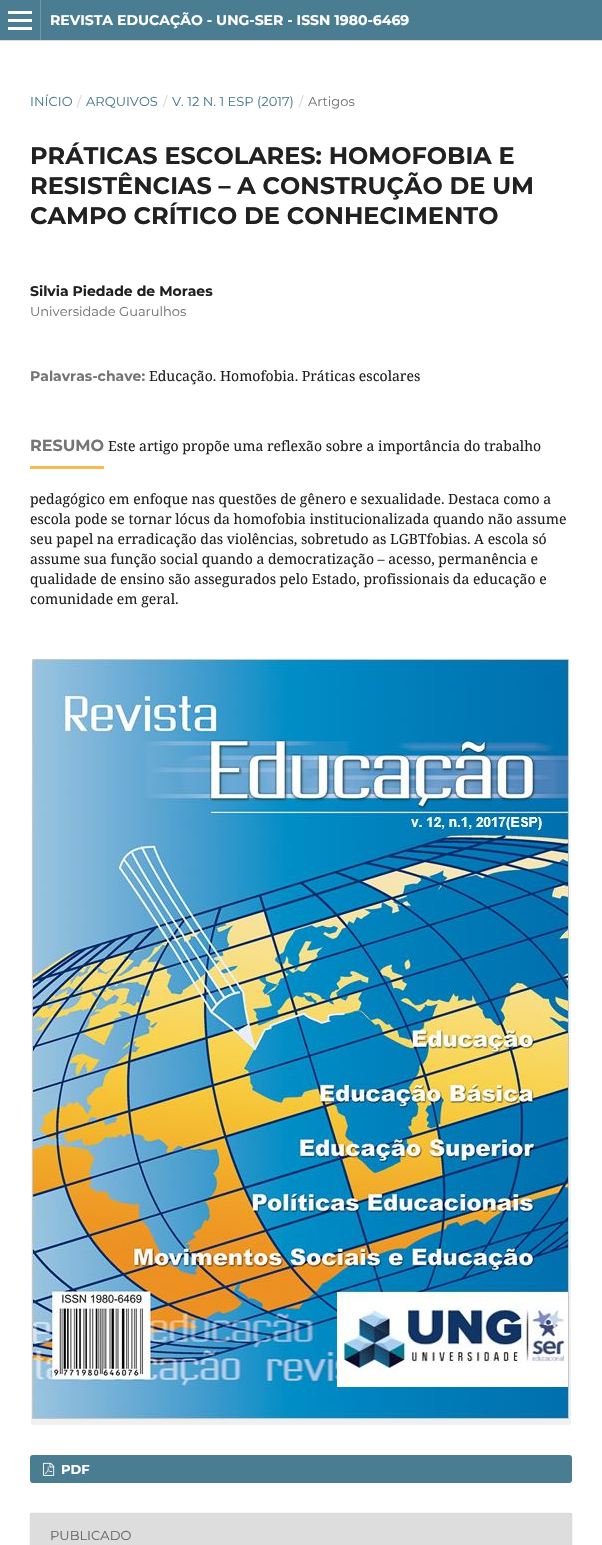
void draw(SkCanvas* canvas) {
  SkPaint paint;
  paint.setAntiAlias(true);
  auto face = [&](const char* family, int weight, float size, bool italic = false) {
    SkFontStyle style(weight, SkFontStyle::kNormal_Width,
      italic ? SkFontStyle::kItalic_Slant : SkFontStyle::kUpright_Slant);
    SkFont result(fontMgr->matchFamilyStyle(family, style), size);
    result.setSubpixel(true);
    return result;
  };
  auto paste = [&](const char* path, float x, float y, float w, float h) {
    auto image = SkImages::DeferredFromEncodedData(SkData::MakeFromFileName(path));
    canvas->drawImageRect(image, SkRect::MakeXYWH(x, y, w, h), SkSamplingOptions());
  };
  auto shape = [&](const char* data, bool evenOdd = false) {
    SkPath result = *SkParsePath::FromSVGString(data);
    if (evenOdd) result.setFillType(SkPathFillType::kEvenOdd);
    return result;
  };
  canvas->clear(0xffffffff);
  {
    const struct { float x, y, w, h; SkColor color; } items[] = {
      {0, 0, 602, 40, 0xff4b7d92},
      {0, 40, 602, 1, 0xffdddddd},
      {40, 0, 1, 40, 0xff6f97a8},
      {8, 27, 24, 3, 0xffffffff},
      {8, 11, 24, 3, 0xffffffff},
      {8, 19, 24, 3, 0xffffffff},
      {30, 466, 74, 3, 0xfff7bc4a},
    };
    for (auto [x, y, w, h, color] : items) {
      paint.setColor(color);
      canvas->drawRect(SkRect::MakeXYWH(x, y, w, h), paint);
    }
  }
  paste("img/1.png", 31, 659, 540, 766);
  paint.setColor(0xff4b7d92);
  canvas->drawRoundRect(SkRect::MakeXYWH(30, 1455, 542, 28), 3, 3, paint);
  paste("img/2.png", 43, 1462, 12, 14);
  paint.setColor(0x66000000);
  paint.setMaskFilter(SkMaskFilter::MakeBlur(kNormal_SkBlurStyle, 0.5f));
  canvas->drawRoundRect(SkRect::MakeXYWH(30, 1513, 542, 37), 3, 3, paint);
  paint.setMaskFilter(nullptr);
  paint.setColor(0xffdddddd);
  canvas->drawPath(shape("M33 1513H569C570.5 1513 572 1514.5 572 1516V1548H30V1516C30 1514.5 31.5 1513 33 1513Z"), paint);
  auto f0 = face("Montserrat", 700, 14);
  paint.setColor(0xffffffff);
  canvas->drawString("REVISTA EDUCAÇÃO - UNG-SER - ISSN 1980-6469", 50, 25, f0, paint);
  auto f1 = face("Montserrat", 400, 13);
  paint.setColor(0xff4b7d92);
  canvas->drawString("INÍCIO", 30, 106, f1, paint);
  paint.setColor(0xffd6d6d6);
  canvas->drawString("/", 77, 106, f1, paint);
  paint.setColor(0xff4b7d92);
  canvas->drawString("ARQUIVOS", 86, 106, f1, paint);
  paint.setColor(0xffd6d6d6);
  canvas->drawString("/", 163, 106, f1, paint);
  paint.setColor(0xff4b7d92);
  canvas->drawString("V. 12 N. 1 ESP (2017)", 172, 106, f1, paint);
  paint.setColor(0xffd6d6d6);
  canvas->drawString("/", 299, 106, f1, paint);
  paint.setColor(0xff757575);
  canvas->drawString("Artigos", 308, 106, f1, paint);
  auto f2 = face("Montserrat", 700, 24);
  paint.setColor(0xff212121);
  {
    const struct { const char* s; float x, y; } items[] = {
      {"PRÁTICAS ESCOLARES: HOMOFOBIA E", 30, 164},
      {"RESISTÊNCIAS – A CONSTRUÇÃO DE UM", 30, 194},
      {"CAMPO CRÍTICO DE CONHECIMENTO", 30, 224},
    };
    for (auto [s, x, y] : items) {
      canvas->drawString(s, x, y, f2, paint);
    }
  }
  canvas->drawString("Silvia Piedade de Moraes", 30, 296, f0, paint);
  paint.setColor(0xff757575);
  canvas->drawString("Universidade Guarulhos", 30, 316, f1, paint);
  canvas->drawString("Palavras-chave:", 30, 381, f0, paint);
  auto f3 = face("Noto Serif", 400, 14);
  paint.setColor(0xff212121);
  canvas->drawString("Educação. Homofobia. Práticas escolares", 149, 381, f3, paint);
  auto f4 = face("Montserrat", 700, 16);
  paint.setColor(0xff757575);
  canvas->drawString("RESUMO", 30, 451, f4, paint);
  paint.setColor(0xff212121);
  {
    const struct { const char* s; float x, y; } items[] = {
      {"Este artigo propõe uma reflexão sobre a importância do trabalho", 108, 451},
      {"pedagógico em enfoque nas questões de gênero e sexualidade. Destaca como a", 30, 504},
      {"escola pode se tornar lócus da homofobia institucionalizada quando não assume", 30, 524},
      {"seu papel na erradicação das violências, sobretudo as LGBTfobias. A escola só", 30, 544},
      {"assume sua função social quando a democratização – acesso, permanência e", 30, 564},
      {"qualidade de ensino são assegurados pelo Estado, profissionais da educação e", 30, 584},
      {"comunidade em geral.", 30, 604},
    };
    for (auto [s, x, y] : items) {
      canvas->drawString(s, x, y, f3, paint);
    }
  }
  auto f5 = face("Montserrat", 700, 13);
  paint.setColor(0xffffffff);
  canvas->drawString("PDF", 61, 1474, f5, paint);
  paint.setColor(0xff666666);
  canvas->drawString("PUBLICADO", 50, 1540, f1, paint);
}
